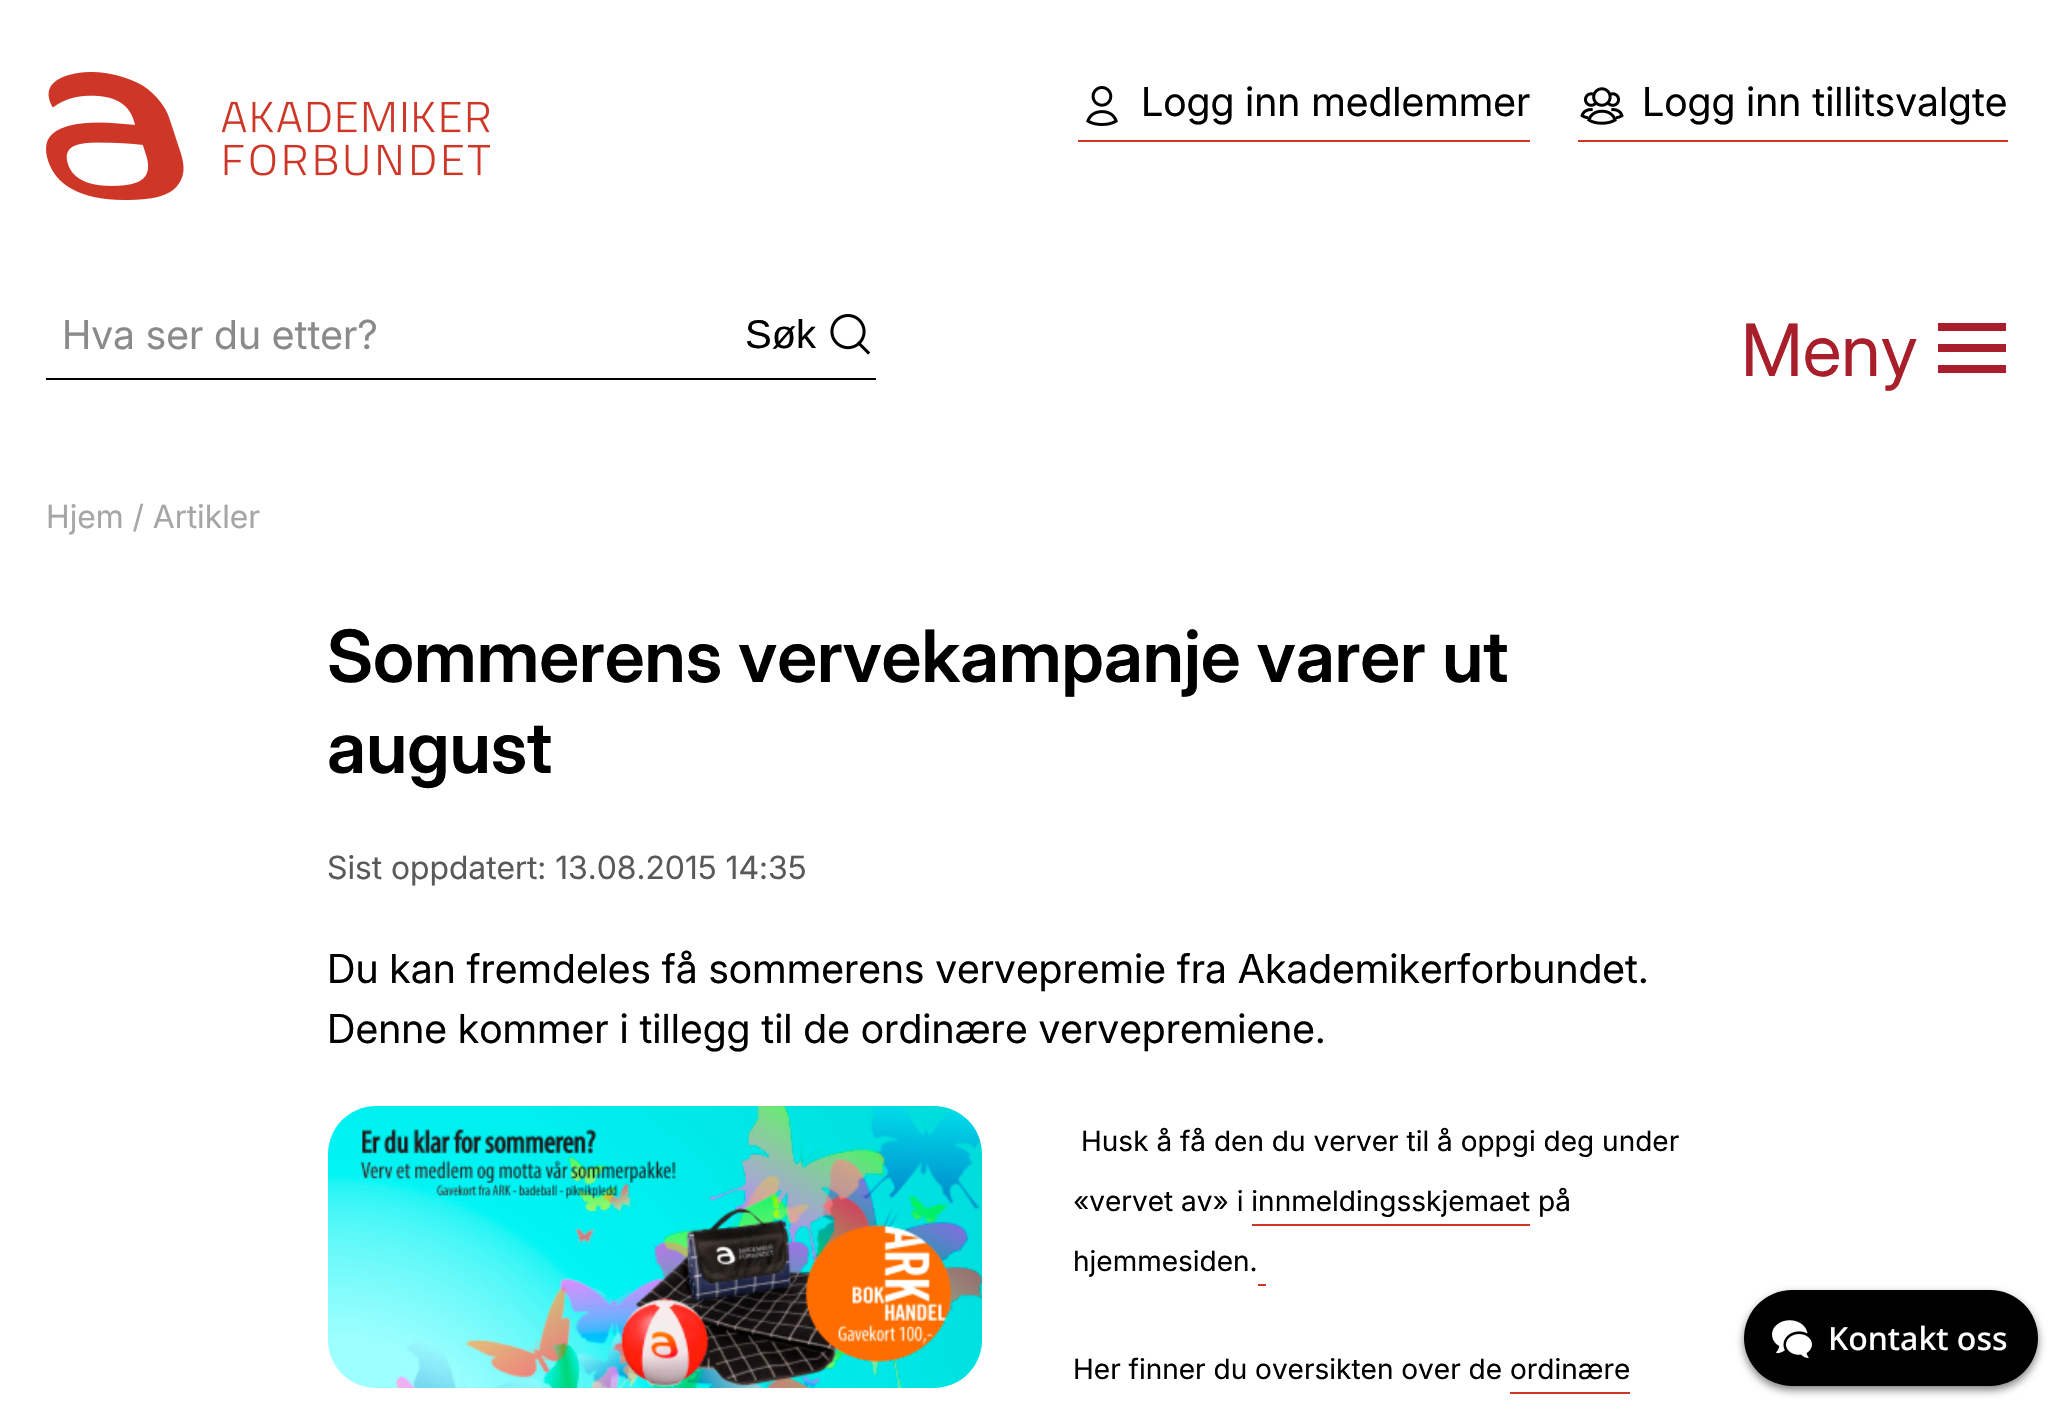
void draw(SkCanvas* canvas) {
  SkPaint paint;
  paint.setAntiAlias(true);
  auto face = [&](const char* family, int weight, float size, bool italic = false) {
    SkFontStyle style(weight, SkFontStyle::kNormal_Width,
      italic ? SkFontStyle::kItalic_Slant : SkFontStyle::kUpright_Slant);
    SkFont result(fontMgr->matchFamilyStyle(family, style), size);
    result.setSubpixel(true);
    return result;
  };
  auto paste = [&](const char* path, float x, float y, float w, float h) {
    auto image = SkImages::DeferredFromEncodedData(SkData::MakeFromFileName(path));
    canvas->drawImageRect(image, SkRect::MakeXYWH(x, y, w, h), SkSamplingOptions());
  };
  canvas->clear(0xffffffff);
  paste("img/1.png", 46, 72, 444, 128);
  paint.setColor(0xff000000);
  canvas->drawRect(SkRect::MakeXYWH(46, 378, 830, 2), paint);
  paste("img/2.png", 830, 314, 41, 41);
  paint.setColor(0xffce3728);
  canvas->drawRect(SkRect::MakeXYWH(1078, 140, 452, 2), paint);
  paste("img/3.png", 1086, 86, 32, 40);
  canvas->drawRect(SkRect::MakeXYWH(1578, 140, 430, 2), paint);
  paste("img/4.png", 1580, 87, 44, 38);
  {
    const struct { float x, y, w, h; SkColor color; } items[] = {
      {1938, 323, 68, 8, 0xffa91e2b},
      {1938, 344, 68, 8, 0xffa91e2b},
      {1938, 365, 68, 8, 0xffa91e2b},
    };
    for (auto [x, y, w, h, color] : items) {
      paint.setColor(color);
      canvas->drawRect(SkRect::MakeXYWH(x, y, w, h), paint);
    }
  }
  paste("img/5.png", 328, 1106, 654, 282);
  {
    const struct { float x, y, w, h; SkColor color; } items[] = {
      {1252, 1224, 278, 2, 0xffce3728},
      {1258, 1284, 8, 2, 0xffce3728},
      {1510, 1392, 120, 2, 0xffce3728},
    };
    for (auto [x, y, w, h, color] : items) {
      paint.setColor(color);
      canvas->drawRect(SkRect::MakeXYWH(x, y, w, h), paint);
    }
  }
  paint.setColor(0x80000000);
  paint.setMaskFilter(SkMaskFilter::MakeBlur(kNormal_SkBlurStyle, 4));
  canvas->drawRoundRect(SkRect::MakeXYWH(1744, 1294, 294, 96), 48, 48, paint);
  paint.setMaskFilter(nullptr);
  paint.setColor(0xff000000);
  canvas->drawRoundRect(SkRect::MakeXYWH(1744, 1290, 294, 96), 48, 48, paint);
  paste("img/6.png", 1772, 1320, 40, 38);
  auto f0 = face("Inter", 400, 40);
  paint.setColor(0xff8a8a8a);
  canvas->drawString("Hva ser du etter?", 62, 349, f0, paint);
  auto f1 = face("Liberation Sans", 400, 40);
  paint.setColor(0xff000000);
  canvas->drawString("Søk", 745, 348, f1, paint);
  canvas->drawString("Logg inn medlemmer", 1141, 116, f0, paint);
  canvas->drawString("Logg inn tillitsvalgte", 1642, 116, f0, paint);
  auto f2 = face("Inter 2", 400, 72);
  paint.setColor(0xffa91e2b);
  canvas->drawString("Meny", 1741, 376, f2, paint);
  auto f3 = face("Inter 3", 400, 32);
  paint.setColor(0xffa6a6a6);
  canvas->drawString("Hjem / Artikler", 46, 528, f3, paint);
  auto f4 = face("Inter", 600, 72);
  paint.setColor(0xff000000);
  canvas->drawString("Sommerens vervekampanje varer ut", 327, 682, f4, paint);
  canvas->drawString("august", 327, 773, f4, paint);
  paint.setColor(0xff595959);
  canvas->drawString("Sist oppdatert: 13.08.2015 14:35", 327, 879, f3, paint);
  paint.setColor(0xff000000);
  canvas->drawString("Du kan fremdeles få sommerens vervepremie fra Akademikerforbundet.", 327, 983, f0, paint);
  canvas->drawString("Denne kommer i tillegg til de ordinære vervepremiene.", 327, 1043, f0, paint);
  auto f5 = face("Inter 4", 400, 28);
  {
    const struct { const char* s; float x, y; } items[] = {
      {"Husk å få den du verver til å oppgi deg under", 1081, 1151},
      {"«vervet av» i innmeldingsskjemaet på", 1073, 1211},
      {"hjemmesiden.", 1073, 1271},
      {"Her finner du oversikten over de ordinære", 1073, 1379},
    };
    for (auto [s, x, y] : items) {
      canvas->drawString(s, x, y, f5, paint);
    }
  }
  auto f6 = face("Noto Sans", 500, 32);
  paint.setColor(0xffffffff);
  canvas->drawString("Kontakt oss", 1828, 1350, f6, paint);
}
